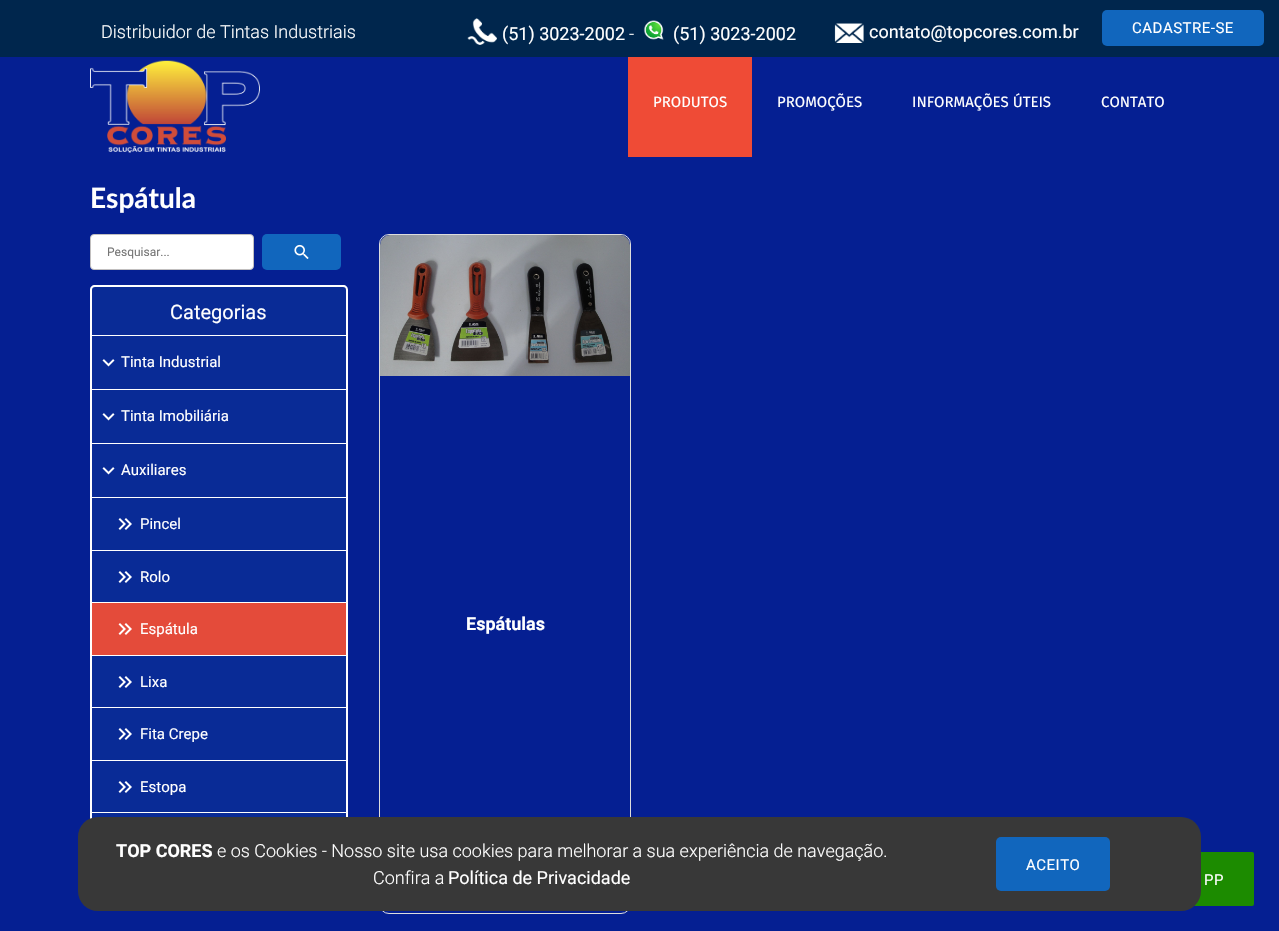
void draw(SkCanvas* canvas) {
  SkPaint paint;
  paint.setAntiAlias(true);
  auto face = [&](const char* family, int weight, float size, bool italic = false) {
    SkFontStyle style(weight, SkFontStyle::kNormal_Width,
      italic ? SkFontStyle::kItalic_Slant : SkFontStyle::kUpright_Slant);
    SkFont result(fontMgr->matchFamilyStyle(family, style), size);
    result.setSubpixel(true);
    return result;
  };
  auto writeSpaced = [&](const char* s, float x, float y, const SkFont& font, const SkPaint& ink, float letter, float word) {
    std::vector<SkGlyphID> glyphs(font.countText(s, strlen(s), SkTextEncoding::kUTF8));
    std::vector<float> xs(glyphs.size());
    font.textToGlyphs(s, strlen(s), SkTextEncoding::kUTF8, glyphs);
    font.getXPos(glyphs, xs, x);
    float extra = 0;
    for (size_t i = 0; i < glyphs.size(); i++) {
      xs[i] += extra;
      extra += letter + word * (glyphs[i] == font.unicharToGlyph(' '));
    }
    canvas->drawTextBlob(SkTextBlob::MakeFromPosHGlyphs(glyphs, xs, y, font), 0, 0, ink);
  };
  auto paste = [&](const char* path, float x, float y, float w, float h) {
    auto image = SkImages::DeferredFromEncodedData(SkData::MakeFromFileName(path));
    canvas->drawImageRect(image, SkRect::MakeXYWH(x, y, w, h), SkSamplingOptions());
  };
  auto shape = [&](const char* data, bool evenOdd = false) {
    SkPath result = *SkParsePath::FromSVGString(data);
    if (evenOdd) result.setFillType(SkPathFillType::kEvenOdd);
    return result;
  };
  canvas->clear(0xff051f92);
  paint.setColor(0xff00264d);
  canvas->drawRect(SkRect::MakeXYWH(0, 0, 1279, 57), paint);
  paste("img/1.png", 467, 18, 30, 27);
  paste("img/2.png", 643, 20, 21, 20);
  paste("img/3.png", 834, 23, 30, 20);
  paint.setColor(0xff1166bd);
  canvas->drawRoundRect(SkRect::MakeXYWH(1102, 10, 162, 36), 5, 5, paint);
  paste("img/4.png", 90, 60, 170, 93);
  paint.setColor(0xffef4b36);
  canvas->drawRect(SkRect::MakeXYWH(628, 57, 124, 100), paint);
  paint.setColor(0xffffffff);
  canvas->drawRoundRect(SkRect::MakeXYWH(90.5f, 234.5f, 163, 35), 3.5f, 3.5f, paint);
  paint.setStroke(true);
  paint.setStrokeWidth(1);
  paint.setColor(0xffc1bfbf);
  canvas->drawRoundRect(SkRect::MakeXYWH(90.5f, 234.5f, 163, 35), 3.5f, 3.5f, paint);
  paint.setStroke(false);
  paint.setColor(0xff1166bd);
  canvas->drawRoundRect(SkRect::MakeXYWH(262, 234, 79, 36), 5, 5, paint);
  paste("img/5.png", 294, 244, 15, 15);
  paint.setColor(0xff092b96);
  canvas->drawRoundRect(SkRect::MakeXYWH(90, 285, 258, 584), 7, 7, paint);
  canvas->drawPath(shape("M95 285H343C346 285 348 287 348 290V335H90V290C90 287 92 285 95 285Z"), paint);
  paint.setColor(0xffffffff);
  canvas->drawPath(shape("M95 285H343C346 285 348 287 348 290V335H90V290C90 287 92 285 95 285ZM95 287H343C345 287 346 288 346 290V335H92V290C92 288 93 287 95 287Z", true), paint);
  {
    const struct { float x, y, w, h; SkColor color; } items[] = {
      {90, 335, 258, 1, 0xffffffff},
      {346, 335, 2, 54, 0xffffffff},
      {90, 335, 2, 54, 0xffffffff},
    };
    for (auto [x, y, w, h, color] : items) {
      paint.setColor(color);
      canvas->drawRect(SkRect::MakeXYWH(x, y, w, h), paint);
    }
  }
  paste("img/6.png", 102, 359, 13, 8);
  {
    const struct { float x, y, w, h; SkColor color; } items[] = {
      {90, 389, 258, 1, 0xffffffff},
      {346, 389, 2, 54, 0xffffffff},
      {90, 389, 2, 54, 0xffffffff},
    };
    for (auto [x, y, w, h, color] : items) {
      paint.setColor(color);
      canvas->drawRect(SkRect::MakeXYWH(x, y, w, h), paint);
    }
  }
  paste("img/6.png", 102, 413, 13, 8);
  {
    const struct { float x, y, w, h; SkColor color; } items[] = {
      {90, 443, 258, 1, 0xffffffff},
      {346, 443, 2, 54, 0xffffffff},
      {90, 443, 2, 54, 0xffffffff},
    };
    for (auto [x, y, w, h, color] : items) {
      paint.setColor(color);
      canvas->drawRect(SkRect::MakeXYWH(x, y, w, h), paint);
    }
  }
  paste("img/6.png", 102, 467, 13, 8);
  {
    const struct { float x, y, w, h; SkColor color; } items[] = {
      {90, 497, 258, 1, 0xffffffff},
      {346, 497, 2, 53, 0xffffffff},
      {90, 497, 2, 53, 0xffffffff},
    };
    for (auto [x, y, w, h, color] : items) {
      paint.setColor(color);
      canvas->drawRect(SkRect::MakeXYWH(x, y, w, h), paint);
    }
  }
  paste("img/7.png", 118, 518, 8, 12);
  paste("img/8.png", 124, 518, 8, 12);
  {
    const struct { float x, y, w, h; SkColor color; } items[] = {
      {90, 550, 258, 1, 0xffffffff},
      {346, 550, 2, 52, 0xffffffff},
      {90, 550, 2, 52, 0xffffffff},
    };
    for (auto [x, y, w, h, color] : items) {
      paint.setColor(color);
      canvas->drawRect(SkRect::MakeXYWH(x, y, w, h), paint);
    }
  }
  paste("img/7.png", 118, 571, 8, 12);
  paste("img/8.png", 124, 571, 8, 12);
  {
    const struct { float x, y, w, h; SkColor color; } items[] = {
      {92, 603, 254, 52, 0xffe44b3a},
      {90, 602, 258, 1, 0xffffffff},
      {346, 602, 2, 53, 0xffffffff},
      {90, 602, 2, 53, 0xffffffff},
    };
    for (auto [x, y, w, h, color] : items) {
      paint.setColor(color);
      canvas->drawRect(SkRect::MakeXYWH(x, y, w, h), paint);
    }
  }
  paste("img/9.png", 118, 623, 8, 12);
  paste("img/10.png", 124, 623, 8, 12);
  {
    const struct { float x, y, w, h; SkColor color; } items[] = {
      {90, 655, 258, 1, 0xffffffff},
      {346, 655, 2, 52, 0xffffffff},
      {90, 655, 2, 52, 0xffffffff},
    };
    for (auto [x, y, w, h, color] : items) {
      paint.setColor(color);
      canvas->drawRect(SkRect::MakeXYWH(x, y, w, h), paint);
    }
  }
  paste("img/7.png", 118, 676, 8, 12);
  paste("img/8.png", 124, 676, 8, 12);
  {
    const struct { float x, y, w, h; SkColor color; } items[] = {
      {90, 707, 258, 1, 0xffffffff},
      {346, 707, 2, 53, 0xffffffff},
      {90, 707, 2, 53, 0xffffffff},
    };
    for (auto [x, y, w, h, color] : items) {
      paint.setColor(color);
      canvas->drawRect(SkRect::MakeXYWH(x, y, w, h), paint);
    }
  }
  paste("img/7.png", 118, 728, 8, 12);
  paste("img/8.png", 124, 728, 8, 12);
  {
    const struct { float x, y, w, h; SkColor color; } items[] = {
      {90, 760, 258, 1, 0xffffffff},
      {346, 760, 2, 52, 0xffffffff},
      {90, 760, 2, 52, 0xffffffff},
    };
    for (auto [x, y, w, h, color] : items) {
      paint.setColor(color);
      canvas->drawRect(SkRect::MakeXYWH(x, y, w, h), paint);
    }
  }
  paste("img/7.png", 118, 781, 8, 12);
  paste("img/8.png", 124, 781, 8, 12);
  {
    const struct { float x, y, w, h; SkColor color; } items[] = {
      {90, 812, 258, 1, 0xffffffff},
      {346, 812, 2, 5, 0xffffffff},
      {90, 812, 2, 7, 0xffffffff},
    };
    for (auto [x, y, w, h, color] : items) {
      paint.setColor(color);
      canvas->drawRect(SkRect::MakeXYWH(x, y, w, h), paint);
    }
  }
  paint.setStroke(true);
  paint.setColor(0xffdddddd);
  canvas->drawRoundRect(SkRect::MakeXYWH(379.5f, 234.5f, 251, 679), 9.5f, 9.5f, paint);
  paste("img/11.png", 380, 235, 250, 141);
  paint.setStroke(false);
  paint.setColor(0xff1c8b00);
  canvas->drawRoundRect(SkRect::MakeXYWH(931, 852, 323, 54), 2, 2, paint);
  paint.setColor(0xff383838);
  canvas->drawRoundRect(SkRect::MakeXYWH(78, 817, 1123, 94), 20, 20, paint);
  paint.setColor(0xff1166bd);
  canvas->drawRoundRect(SkRect::MakeXYWH(996, 837, 114, 54), 5, 5, paint);
  auto f0 = face("Roboto", 300, 18);
  paint.setColor(0xffffffff);
  canvas->drawString("Distribuidor de Tintas Industriais", 101, 38, f0, paint);
  auto f1 = face("Roboto", 400, 18);
  canvas->drawString("(51) 3023-2002", 502, 40, f1, paint);
  canvas->drawString("-", 629, 40, f0, paint);
  canvas->drawString("(51) 3023-2002", 673, 40, f1, paint);
  canvas->drawString("contato@topcores.com.br", 869, 38, f1, paint);
  auto f2 = face("Roboto", 400, 15);
  writeSpaced("CADASTRE-SE", 1132, 33, f2, paint, 0.5f, 0);
  auto f3 = face("Fira Sans", 400, 15);
  {
    const struct { const char* s; float x, y; } items[] = {
      {"PRODUTOS", 653, 107},
      {"PROMOÇÕES", 777, 107},
      {"INFORMAÇÕES ÚTEIS", 912, 107},
      {"CONTATO", 1101, 107},
    };
    for (auto [s, x, y] : items) {
      canvas->drawString(s, x, y, f3, paint);
    }
  }
  auto f4 = face("Lato", 700, 28);
  canvas->drawString("Espátula", 90, 208, f4, paint);
  auto f5 = face("Roboto", 400, 12);
  paint.setColor(0xff757575);
  canvas->drawString("Pesquisar...", 107, 256, f5, paint);
  auto f6 = face("Roboto", 400, 20);
  paint.setColor(0xffffffff);
  canvas->drawString("Categorias", 170, 319, f6, paint);
  {
    const struct { const char* s; float x, y; } items[] = {
      {"Tinta Industrial", 121, 367},
      {"Tinta Imobiliária", 121, 421},
      {"Auxiliares", 121, 475},
      {"Pincel", 140, 529},
      {"Rolo", 140, 582},
      {"Espátula", 140, 634},
      {"Lixa", 140, 687},
      {"Fita Crepe", 140, 739},
      {"Estopa", 140, 792},
    };
    for (auto [s, x, y] : items) {
      canvas->drawString(s, x, y, f2, paint);
    }
  }
  auto f7 = face("Roboto", 700, 18);
  canvas->drawString("Espátulas", 466, 630, f7, paint);
  canvas->drawString("TOP CORES", 116, 857, f7, paint);
  canvas->drawString("e os Cookies - Nosso site usa cookies para melhorar a sua experiência de navegação.", 217, 857, f0, paint);
  canvas->drawString("Confira a", 373, 884, f0, paint);
  canvas->drawString("Política de Privacidade", 448, 884, f1, paint);
  writeSpaced("ACEITO", 1026, 870, f2, paint, 0.5f, 0);
  writeSpaced("PP", 1204, 885, f2, paint, 0.5f, 0);
}
